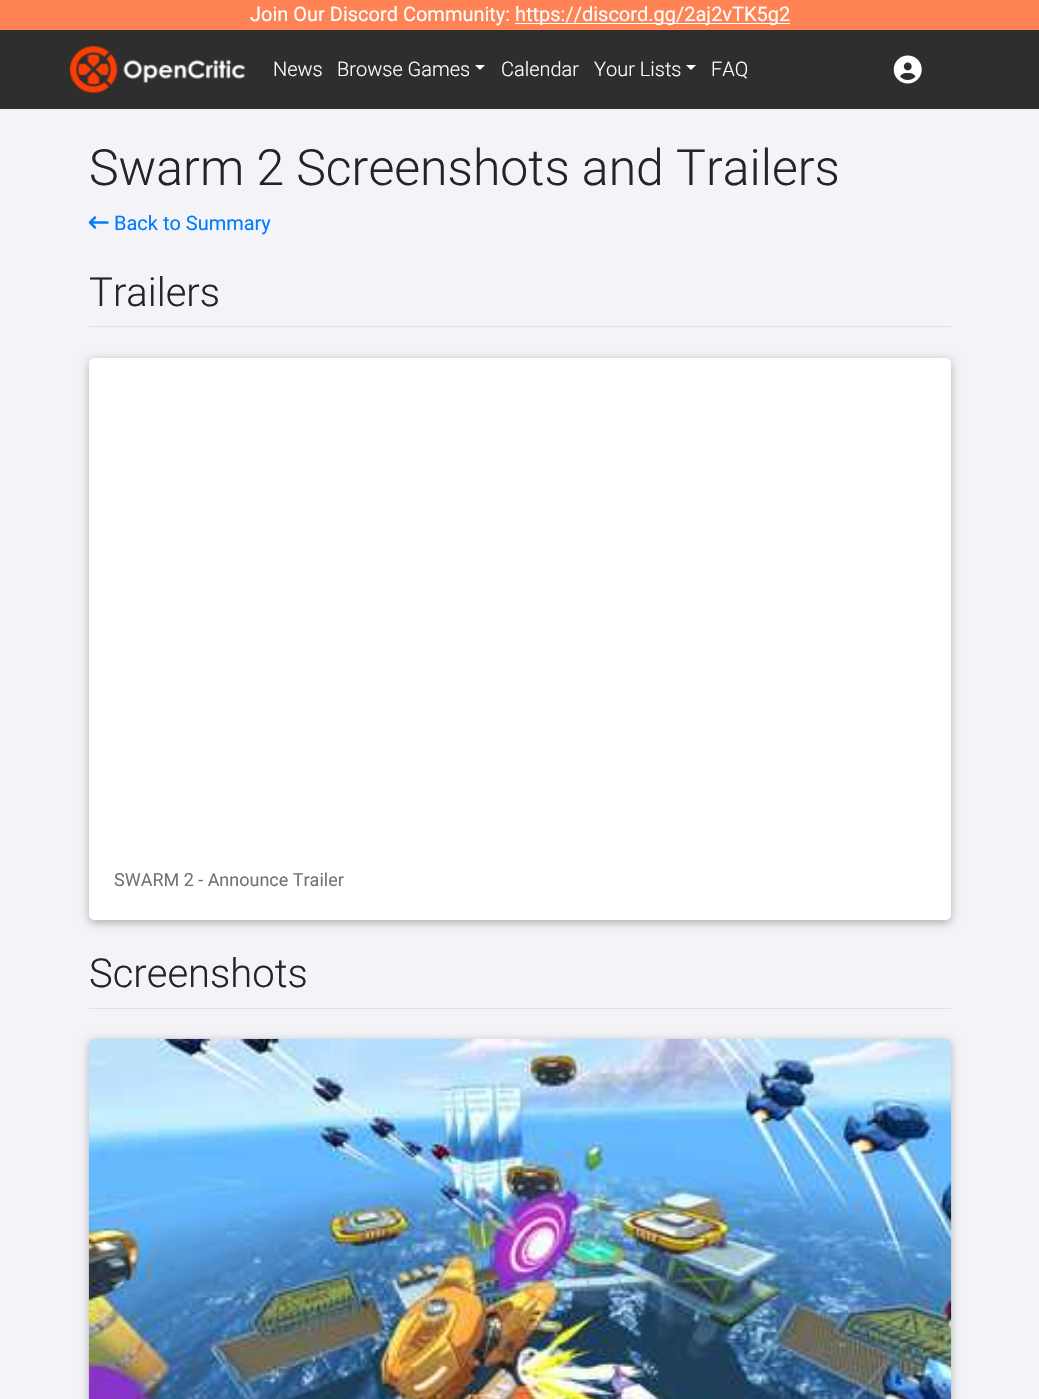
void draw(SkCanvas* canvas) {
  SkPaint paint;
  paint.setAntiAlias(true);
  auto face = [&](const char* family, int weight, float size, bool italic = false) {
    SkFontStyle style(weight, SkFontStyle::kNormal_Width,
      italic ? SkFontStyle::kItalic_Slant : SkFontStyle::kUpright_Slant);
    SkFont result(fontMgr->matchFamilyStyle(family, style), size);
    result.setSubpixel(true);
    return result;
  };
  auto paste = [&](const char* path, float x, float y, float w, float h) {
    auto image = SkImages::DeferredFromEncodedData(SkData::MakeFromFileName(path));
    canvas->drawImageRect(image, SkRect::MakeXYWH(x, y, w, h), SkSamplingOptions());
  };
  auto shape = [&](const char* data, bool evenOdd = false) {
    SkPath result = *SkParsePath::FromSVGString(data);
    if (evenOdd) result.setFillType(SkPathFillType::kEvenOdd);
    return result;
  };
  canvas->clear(0xfff4f4f8);
  {
    const struct { float x, y, w, h; SkColor color; } items[] = {
      {0, 0, 1039, 30, 0xffff8354},
      {515, 23, 275, 1, 0xffffffff},
      {0, 30, 1039, 79, 0xff2e2e2e},
    };
    for (auto [x, y, w, h, color] : items) {
      paint.setColor(color);
      canvas->drawRect(SkRect::MakeXYWH(x, y, w, h), paint);
    }
  }
  paste("img/1.png", 70, 46, 175, 47);
  paint.setColor(0xffffffff);
  canvas->drawPath(shape("M475 65H485L480 70Z"), paint);
  canvas->drawPath(shape("M686 65H696L691 70Z"), paint);
  paste("img/2.png", 893, 55, 29, 29);
  paste("img/3.png", 88, 216, 21, 13);
  paint.setColor(0xffdee2e6);
  canvas->drawRect(SkRect::MakeXYWH(89, 326, 862, 1), paint);
  paint.setColor(0x1f000000);
  paint.setMaskFilter(SkMaskFilter::MakeBlur(kNormal_SkBlurStyle, 6));
  canvas->drawRoundRect(SkRect::MakeXYWH(89, 360, 862, 563), 5, 5, paint);
  paint.setMaskFilter(nullptr);
  paint.setColor(0x29000000);
  paint.setMaskFilter(SkMaskFilter::MakeBlur(kNormal_SkBlurStyle, 3));
  canvas->drawRoundRect(SkRect::MakeXYWH(89, 360, 862, 563), 5, 5, paint);
  paint.setMaskFilter(nullptr);
  paint.setColor(0xffffffff);
  canvas->drawRoundRect(SkRect::MakeXYWH(89, 358, 862, 562), 5, 5, paint);
  paint.setColor(0xffdee2e6);
  canvas->drawRect(SkRect::MakeXYWH(89, 1008, 862, 1), paint);
  paint.setColor(0x1f000000);
  paint.setMaskFilter(SkMaskFilter::MakeBlur(kNormal_SkBlurStyle, 6));
  canvas->drawRoundRect(SkRect::MakeXYWH(89, 1041, 862, 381), 5, 5, paint);
  paint.setMaskFilter(nullptr);
  paint.setColor(0x29000000);
  paint.setMaskFilter(SkMaskFilter::MakeBlur(kNormal_SkBlurStyle, 3));
  canvas->drawRoundRect(SkRect::MakeXYWH(89, 1041, 862, 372), 5, 5, paint);
  paint.setMaskFilter(nullptr);
  paste("img/4.png", 88, 1038, 864, 361);
  auto f0 = face("Roboto", 400, 20);
  paint.setColor(0xffffffff);
  canvas->drawString("Join Our Discord Community:", 250, 21, f0, paint);
  canvas->drawString("https://discord.gg/2aj2vTK5g2", 515, 21, f0, paint);
  auto f1 = face("Roboto", 300, 20);
  {
    const struct { const char* s; float x, y; } items[] = {
      {"News", 273, 76},
      {"Browse Games", 337, 76},
      {"Calendar", 501, 76},
      {"Your Lists", 594, 76},
      {"FAQ", 711, 76},
    };
    for (auto [s, x, y] : items) {
      canvas->drawString(s, x, y, f1, paint);
    }
  }
  auto f2 = face("Roboto", 300, 50);
  paint.setColor(0xff212529);
  canvas->drawString("Swarm 2 Screenshots and Trailers", 89, 185, f2, paint);
  paint.setColor(0xff007bff);
  canvas->drawString("Back to Summary", 114, 230, f0, paint);
  auto f3 = face("Roboto", 300, 40);
  paint.setColor(0xff212529);
  canvas->drawString("Trailers", 89, 306, f3, paint);
  auto f4 = face("Roboto", 400, 18);
  paint.setColor(0xff747373);
  canvas->drawString("SWARM 2 - Announce Trailer", 114, 886, f4, paint);
  paint.setColor(0xff212529);
  canvas->drawString("Screenshots", 89, 987, f3, paint);
}
